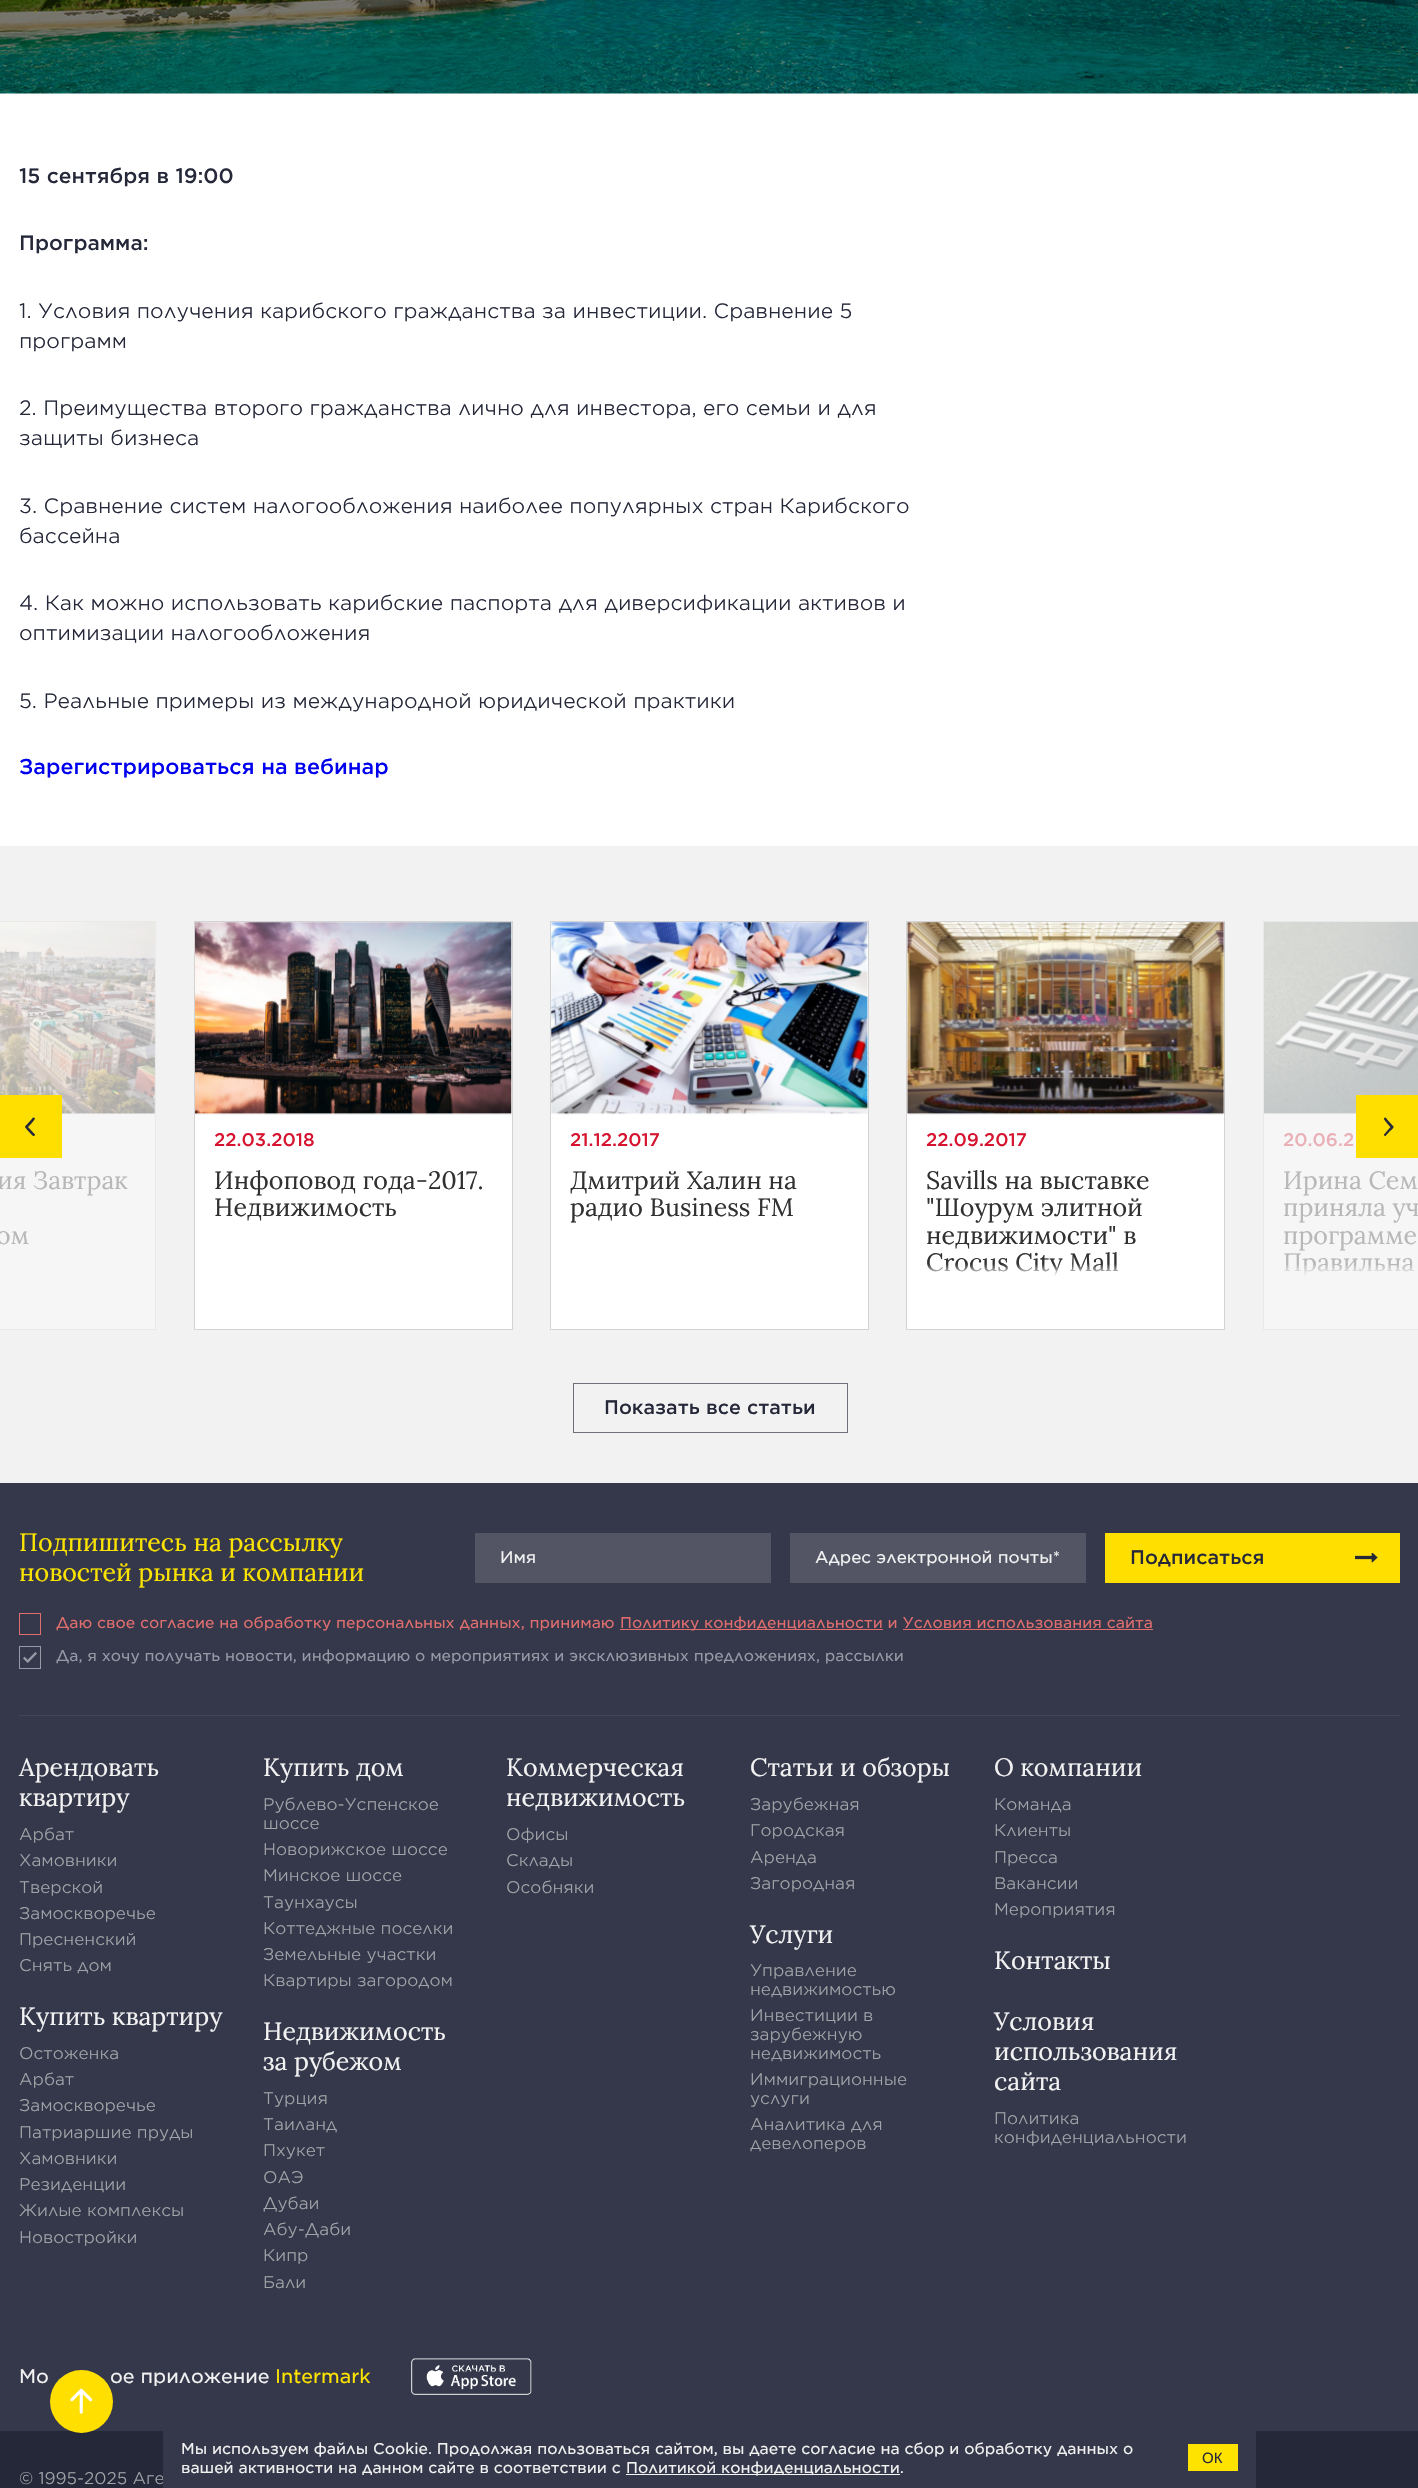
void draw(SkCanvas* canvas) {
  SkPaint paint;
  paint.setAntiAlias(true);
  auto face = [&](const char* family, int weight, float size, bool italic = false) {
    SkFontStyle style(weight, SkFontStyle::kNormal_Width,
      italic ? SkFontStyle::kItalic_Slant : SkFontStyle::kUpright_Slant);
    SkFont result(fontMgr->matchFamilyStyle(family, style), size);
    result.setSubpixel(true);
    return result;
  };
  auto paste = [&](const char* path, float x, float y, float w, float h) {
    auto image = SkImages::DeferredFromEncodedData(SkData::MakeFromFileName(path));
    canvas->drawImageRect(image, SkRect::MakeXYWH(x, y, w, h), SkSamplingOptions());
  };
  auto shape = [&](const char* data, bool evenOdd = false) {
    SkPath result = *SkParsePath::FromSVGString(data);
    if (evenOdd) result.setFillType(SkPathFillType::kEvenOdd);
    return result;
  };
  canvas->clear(0xffffffff);
  paste("img/1.png", 0, 0, 1418, 94);
  paint.setColor(0xfff2f2f2);
  canvas->drawRect(SkRect::MakeXYWH(0, 846, 1418, 637), paint);
  paint.setColor(0xfff6f6f6);
  canvas->drawRect(SkRect::MakeXYWH(-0.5f, 921.5f, 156, 408), paint);
  paint.setStroke(true);
  paint.setStrokeWidth(1);
  paint.setColor(0xffe9e9e9);
  canvas->drawRect(SkRect::MakeXYWH(-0.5f, 921.5f, 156, 408), paint);
  paste("img/2.png", 0, 922, 155, 192);
  paint.setStroke(false);
  paint.setColor(0xffffdf00);
  canvas->drawRect(SkRect::MakeXYWH(0, 1095, 62, 63), paint);
  paint.setColor(0xff25283b);
  canvas->drawPath(shape("M28 1127C29 1126 35.5 1119.5 35 1118.5C33 1116 32.5 1118.5 30.5 1120.5L25 1126.5C24.5 1127.5 32 1135 33 1136H34C34 1136 35.5 1135 35 1134.5Z"), paint);
  paint.setColor(0xfff6f6f6);
  canvas->drawRect(SkRect::MakeXYWH(1264, 1113, 154, 216), paint);
  paint.setStroke(true);
  paint.setColor(0xffe9e9e9);
  canvas->drawRect(SkRect::MakeXYWH(1263.5f, 921.5f, 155, 408), paint);
  paste("img/6.png", 1264, 922, 154, 192);
  paint.setStroke(false);
  paint.setColor(0xffffdf00);
  canvas->drawRect(SkRect::MakeXYWH(1356, 1095, 62, 63), paint);
  paint.setColor(0xff25283b);
  canvas->drawPath(shape("M1390.5 1127C1389.5 1126 1383.5 1119.5 1384 1119C1385 1115.5 1387 1119.5 1388 1120.5L1393.5 1126.5C1394.5 1127.5 1390 1131 1389.5 1131.5L1385.5 1136H1385C1384.5 1136 1383.5 1135 1384 1134.5Z"), paint);
  paint.setColor(0xffffffff);
  canvas->drawRect(SkRect::MakeXYWH(194.5f, 921.5f, 318, 408), paint);
  paint.setStroke(true);
  paint.setColor(0xffd3d3d3);
  canvas->drawRect(SkRect::MakeXYWH(194.5f, 921.5f, 318, 408), paint);
  paste("img/3.png", 195, 922, 317, 193);
  paint.setStroke(false);
  paint.setColor(0xffffffff);
  canvas->drawRect(SkRect::MakeXYWH(550.5f, 921.5f, 318, 408), paint);
  paint.setStroke(true);
  paint.setColor(0xffd3d3d3);
  canvas->drawRect(SkRect::MakeXYWH(550.5f, 921.5f, 318, 408), paint);
  paste("img/4.png", 551, 922, 318, 193);
  paint.setStroke(false);
  paint.setColor(0xffffffff);
  canvas->drawRect(SkRect::MakeXYWH(906.5f, 921.5f, 318, 408), paint);
  paint.setStroke(true);
  paint.setColor(0xffd3d3d3);
  canvas->drawRect(SkRect::MakeXYWH(906.5f, 921.5f, 318, 408), paint);
  paste("img/5.png", 907, 922, 318, 193);
  paint.setColor(0xff6d6f7b);
  canvas->drawRect(SkRect::MakeXYWH(573.5f, 1383.5f, 274, 49), paint);
  paint.setStroke(false);
  {
    const struct { float x, y, w, h; SkColor color; } items[] = {
      {0, 1483, 1418, 948, 0xff35384b},
      {19, 1715, 1381, 1, 0xff424554},
      {475, 1533, 296, 50, 0xff535564},
      {790, 1533, 296, 50, 0xff535564},
      {1105, 1533, 295, 50, 0xffffdf00},
    };
    for (auto [x, y, w, h, color] : items) {
      paint.setColor(color);
      canvas->drawRect(SkRect::MakeXYWH(x, y, w, h), paint);
    }
  }
  paste("img/7.png", 1355, 1553, 23, 10);
  paint.setStroke(true);
  paint.setColor(0xffe06e6e);
  canvas->drawRect(SkRect::MakeXYWH(19.5f, 1613.5f, 21, 21), paint);
  paint.setStroke(false);
  canvas->drawRect(SkRect::MakeXYWH(620, 1629, 263, 1), paint);
  canvas->drawRect(SkRect::MakeXYWH(903, 1629, 250, 1), paint);
  paste("img/8.png", 23, 1652, 14, 11);
  paint.setStroke(true);
  paint.setColor(0xff9799a6);
  canvas->drawRect(SkRect::MakeXYWH(19.5f, 1646.5f, 21, 22), paint);
  paste("img/9.png", 411, 2358, 121, 37);
  paint.setStroke(false);
  paint.setColor(0xff252839);
  canvas->drawRect(SkRect::MakeXYWH(0, 2431, 1418, 57), paint);
  auto f0 = face("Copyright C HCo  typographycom", 300, 20);
  canvas->drawString("15 сентября в 19:00", 19, 183, f0, paint);
  canvas->drawString("Программа:", 19, 250, f0, paint);
  auto f1 = face("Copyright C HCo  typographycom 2", 300, 20);
  {
    const struct { const char* s; float x, y; } items[] = {
      {"1. Условия получения карибского гражданства за инвестиции. Сравнение 5", 19, 318},
      {"программ", 19, 348},
      {"2. Преимущества второго гражданства лично для инвестора, его семьи и для", 19, 415},
      {"защиты бизнеса", 19, 445},
      {"3. Сравнение систем налогообложения наиболее популярных стран Карибского", 19, 513},
      {"бассейна", 19, 543},
      {"4. Как можно использовать карибские паспорта для диверсификации активов и", 19, 610},
      {"оптимизации налогообложения", 19, 640},
      {"5. Реальные примеры из международной юридической практики", 19, 708},
    };
    for (auto [s, x, y] : items) {
      canvas->drawString(s, x, y, f1, paint);
    }
  }
  auto f2 = face("Copyright C HCo  typographycom", 300, 20.5f);
  paint.setColor(0xff0000ee);
  canvas->drawString("Зарегистрироваться на вебинар", 19, 774, f2, paint);
  auto f3 = face("Lora", 400, 25);
  paint.setColor(0xffb8b8b8);
  canvas->drawString("ия Завтрак", -3, 1189, f3, paint);
  canvas->drawString("ом", -4, 1244, f3, paint);
  auto f4 = face("Copyright C HCo  typographycom", 300, 17.5f);
  paint.setColor(0xffd6142f);
  canvas->drawString("22.03.2018", 214, 1146, f4, paint);
  paint.setColor(0xff313131);
  canvas->drawString("Инфоповод года-2017.", 214, 1189, f3, paint);
  canvas->drawString("Недвижимость", 214, 1216, f3, paint);
  paint.setColor(0xffd6142f);
  canvas->drawString("21.12.2017", 570, 1146, f4, paint);
  paint.setColor(0xff313131);
  canvas->drawString("Дмитрий Халин на", 570, 1189, f3, paint);
  canvas->drawString("радио Business FM", 570, 1216, f3, paint);
  paint.setColor(0xffd6142f);
  canvas->drawString("22.09.2017", 926, 1146, f4, paint);
  paint.setColor(0xff313131);
  {
    const struct { const char* s; float x, y; } items[] = {
      {"Savills на выставке", 926, 1189},
      {"\"Шоурум элитной", 926, 1216},
      {"недвижимости\" в", 926, 1244},
    };
    for (auto [s, x, y] : items) {
      canvas->drawString(s, x, y, f3, paint);
    }
  }
  canvas->save();
  canvas->clipRect(SkRect::MakeXYWH(926, 1166, 279, 110));
  canvas->drawString("Crocus City Mall", 926, 1271, f3, paint);
  canvas->restore();
  {
    const SkColor colors[] = {0xffffffff, 0x00ffffff};
    const float stops[] = {0, 1};
    const SkPoint ends[] = {{1066, 1276}, {1066, 1264}};
    paint.setShader(SkGradientShader::MakeLinear(ends, colors, stops, 2, SkTileMode::kClamp));
    paint.setAlpha(255);
  }
  canvas->drawRect(SkRect::MakeXYWH(927, 1264, 192, 12), paint);
  paint.setShader(nullptr);
  paint.setColor(0xffeaafb7);
  canvas->drawString("20.06.2", 1283, 1146, f4, paint);
  paint.setColor(0xffb8b8b8);
  {
    const struct { const char* s; float x, y; } items[] = {
      {"Ирина Сем", 1283, 1189},
      {"приняла уч", 1283, 1216},
      {"программе", 1283, 1244},
    };
    for (auto [s, x, y] : items) {
      canvas->drawString(s, x, y, f3, paint);
    }
  }
  canvas->save();
  canvas->clipRect(SkRect::MakeXYWH(1283, 1166, 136, 110));
  canvas->drawString("Правильна", 1283, 1271, f3, paint);
  canvas->restore();
  {
    const SkColor colors[] = {0xfff6f6f6, 0x00f6f6f6};
    const float stops[] = {0, 1};
    const SkPoint ends[] = {{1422, 1276}, {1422, 1264}};
    paint.setShader(SkGradientShader::MakeLinear(ends, colors, stops, 2, SkTileMode::kClamp));
    paint.setAlpha(255);
  }
  canvas->drawRect(SkRect::MakeXYWH(1283, 1265, 131, 11), paint);
  auto f5 = face("Copyright C HCo  typographycom", 300, 18.75f);
  paint.setShader(nullptr);
  paint.setColor(0xff252839);
  canvas->drawString("Показать все статьи", 604, 1414, f5, paint);
  paint.setColor(0xfffce300);
  canvas->drawString("Подпишитесь на рассылку", 19, 1551, f3, paint);
  canvas->drawString("новостей рынка и компании", 19, 1581, f3, paint);
  auto f6 = face("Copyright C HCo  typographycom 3", 300, 16.25f);
  paint.setColor(0xfff2f2f2);
  canvas->drawString("Имя", 500, 1563, f6, paint);
  canvas->drawString("Адрес электронной почты*", 815, 1563, f6, paint);
  paint.setColor(0xff252839);
  canvas->drawString("Подписаться", 1130, 1564, f5, paint);
  auto f7 = face("Copyright C HCo  typographycom 3", 300, 15);
  paint.setColor(0xffe06e6e);
  canvas->drawString("Даю свое согласие на обработку персональных данных, принимаю", 56, 1628, f7, paint);
  canvas->drawString("Политику конфиденциальности и Условия использования сайта", 620, 1628, f7, paint);
  paint.setColor(0xff9799a6);
  canvas->drawString("Да, я хочу получать новости, информацию о мероприятиях и эксклюзивных предложениях, рассылки", 56, 1661, f7, paint);
  paint.setColor(0xfff2f2f2);
  canvas->drawString("Арендовать", 19, 1776, f3, paint);
  canvas->drawString("квартиру", 19, 1806, f3, paint);
  auto f8 = face("Copyright C HCo  typographycom 2", 300, 16.25f);
  paint.setColor(0xffa3a4a9);
  {
    const struct { const char* s; float x, y; } items[] = {
      {"Арбат", 19, 1840},
      {"Хамовники", 19, 1866},
      {"Тверской", 19, 1893},
      {"Замоскворечье", 19, 1919},
      {"Пресненский", 19, 1945},
      {"Снять дом", 19, 1971},
    };
    for (auto [s, x, y] : items) {
      canvas->drawString(s, x, y, f8, paint);
    }
  }
  paint.setColor(0xfff2f2f2);
  canvas->drawString("Купить квартиру", 19, 2025, f3, paint);
  paint.setColor(0xffa3a4a9);
  {
    const struct { const char* s; float x, y; } items[] = {
      {"Остоженка", 19, 2059},
      {"Арбат", 19, 2085},
      {"Замоскворечье", 19, 2111},
      {"Патриаршие пруды", 19, 2138},
      {"Хамовники", 19, 2164},
      {"Резиденции", 19, 2190},
      {"Жилые комплексы", 19, 2216},
      {"Новостройки", 19, 2243},
    };
    for (auto [s, x, y] : items) {
      canvas->drawString(s, x, y, f8, paint);
    }
  }
  paint.setColor(0xfff2f2f2);
  canvas->drawString("Купить дом", 263, 1776, f3, paint);
  paint.setColor(0xffa3a4a9);
  {
    const struct { const char* s; float x, y; } items[] = {
      {"Рублево-Успенское", 263, 1810},
      {"шоссе", 263, 1829},
      {"Новорижское шоссе", 263, 1855},
      {"Минское шоссе", 263, 1881},
      {"Таунхаусы", 263, 1908},
      {"Коттеджные поселки", 263, 1934},
      {"Земельные участки", 263, 1960},
      {"Квартиры загородом", 263, 1986},
    };
    for (auto [s, x, y] : items) {
      canvas->drawString(s, x, y, f8, paint);
    }
  }
  paint.setColor(0xfff2f2f2);
  canvas->drawString("Недвижимость", 263, 2040, f3, paint);
  canvas->drawString("за рубежом", 263, 2070, f3, paint);
  paint.setColor(0xffa3a4a9);
  {
    const struct { const char* s; float x, y; } items[] = {
      {"Турция", 263, 2104},
      {"Таиланд", 263, 2130},
      {"Пхукет", 263, 2156},
      {"ОАЭ", 263, 2183},
      {"Дубаи", 263, 2209},
      {"Абу-Даби", 263, 2235},
      {"Кипр", 263, 2261},
      {"Бали", 263, 2288},
    };
    for (auto [s, x, y] : items) {
      canvas->drawString(s, x, y, f8, paint);
    }
  }
  paint.setColor(0xfff2f2f2);
  canvas->drawString("Коммерческая", 506, 1776, f3, paint);
  canvas->drawString("недвижимость", 506, 1806, f3, paint);
  paint.setColor(0xffa3a4a9);
  {
    const struct { const char* s; float x, y; } items[] = {
      {"Офисы", 506, 1840},
      {"Склады", 506, 1866},
      {"Особняки", 506, 1893},
    };
    for (auto [s, x, y] : items) {
      canvas->drawString(s, x, y, f8, paint);
    }
  }
  paint.setColor(0xfff2f2f2);
  canvas->drawString("Статьи и обзоры", 750, 1776, f3, paint);
  paint.setColor(0xffa3a4a9);
  {
    const struct { const char* s; float x, y; } items[] = {
      {"Зарубежная", 750, 1810},
      {"Городская", 750, 1836},
      {"Аренда", 750, 1863},
      {"Загородная", 750, 1889},
    };
    for (auto [s, x, y] : items) {
      canvas->drawString(s, x, y, f8, paint);
    }
  }
  paint.setColor(0xfff2f2f2);
  canvas->drawString("Услуги", 750, 1943, f3, paint);
  paint.setColor(0xffa3a4a9);
  {
    const struct { const char* s; float x, y; } items[] = {
      {"Управление", 750, 1976},
      {"недвижимостью", 750, 1995},
      {"Инвестиции в", 750, 2021},
      {"зарубежную", 750, 2040},
      {"недвижимость", 750, 2059},
      {"Иммиграционные", 750, 2085},
      {"услуги", 750, 2104},
      {"Аналитика для", 750, 2130},
      {"девелоперов", 750, 2149},
    };
    for (auto [s, x, y] : items) {
      canvas->drawString(s, x, y, f8, paint);
    }
  }
  paint.setColor(0xfff2f2f2);
  canvas->drawString("О компании", 994, 1776, f3, paint);
  paint.setColor(0xffa3a4a9);
  {
    const struct { const char* s; float x, y; } items[] = {
      {"Команда", 994, 1810},
      {"Клиенты", 994, 1836},
      {"Пресса", 994, 1863},
      {"Вакансии", 994, 1889},
      {"Мероприятия", 994, 1915},
    };
    for (auto [s, x, y] : items) {
      canvas->drawString(s, x, y, f8, paint);
    }
  }
  paint.setColor(0xfff2f2f2);
  {
    const struct { const char* s; float x, y; } items[] = {
      {"Контакты", 994, 1969},
      {"Условия", 994, 2030},
      {"использования", 994, 2060},
      {"сайта", 994, 2090},
    };
    for (auto [s, x, y] : items) {
      canvas->drawString(s, x, y, f3, paint);
    }
  }
  paint.setColor(0xffa3a4a9);
  canvas->drawString("Политика", 994, 2124, f8, paint);
  canvas->drawString("конфиденциальности", 994, 2143, f8, paint);
  auto f9 = face("Copyright C HCo  typographycom 3", 300, 18.75f);
  paint.setColor(0xfff2f2f2);
  canvas->drawString("Мо", 19, 2383, f9, paint);
  canvas->drawString("ое приложение", 110, 2383, f9, paint);
  paint.setColor(0xfffce300);
  canvas->drawString("Intermark", 275, 2383, f9, paint);
  paint.setColor(0xffa3a4a9);
  canvas->drawString("© 1995-2025 Аге", 19, 2484, f8, paint);
  paint.setColor(0xffffdf00);
  canvas->drawCircle(81.5f, 2401.5f, 31.5f, paint);
  paste("img/10.png", 70, 2388, 23, 26);
  paint.setColor(0xff35384a);
  canvas->drawRect(SkRect::MakeXYWH(163, 2431, 1093, 57), paint);
  paint.setColor(0xfff2f2f2);
  canvas->drawString("Мы используем файлы Cookie. Продолжая пользоваться сайтом, вы даете согласие на сбор и обработку данных о", 181, 2454, f7, paint);
  canvas->drawString("вашей активности на данном сайте в соответствии с", 181, 2473, f7, paint);
  paint.setColor(0xfff5f5f5);
  canvas->drawRect(SkRect::MakeXYWH(626, 2474, 274, 1), paint);
  paint.setColor(0xfff2f2f2);
  canvas->drawString("Политикой конфиденциальности.", 626, 2473, f7, paint);
  paint.setColor(0xffffe300);
  canvas->drawRect(SkRect::MakeXYWH(1188, 2444, 50, 27), paint);
  auto f10 = face("Liberation Sans", 400, 15);
  paint.setColor(0xff252839);
  canvas->drawString("ОК", 1202, 2463, f10, paint);
}
